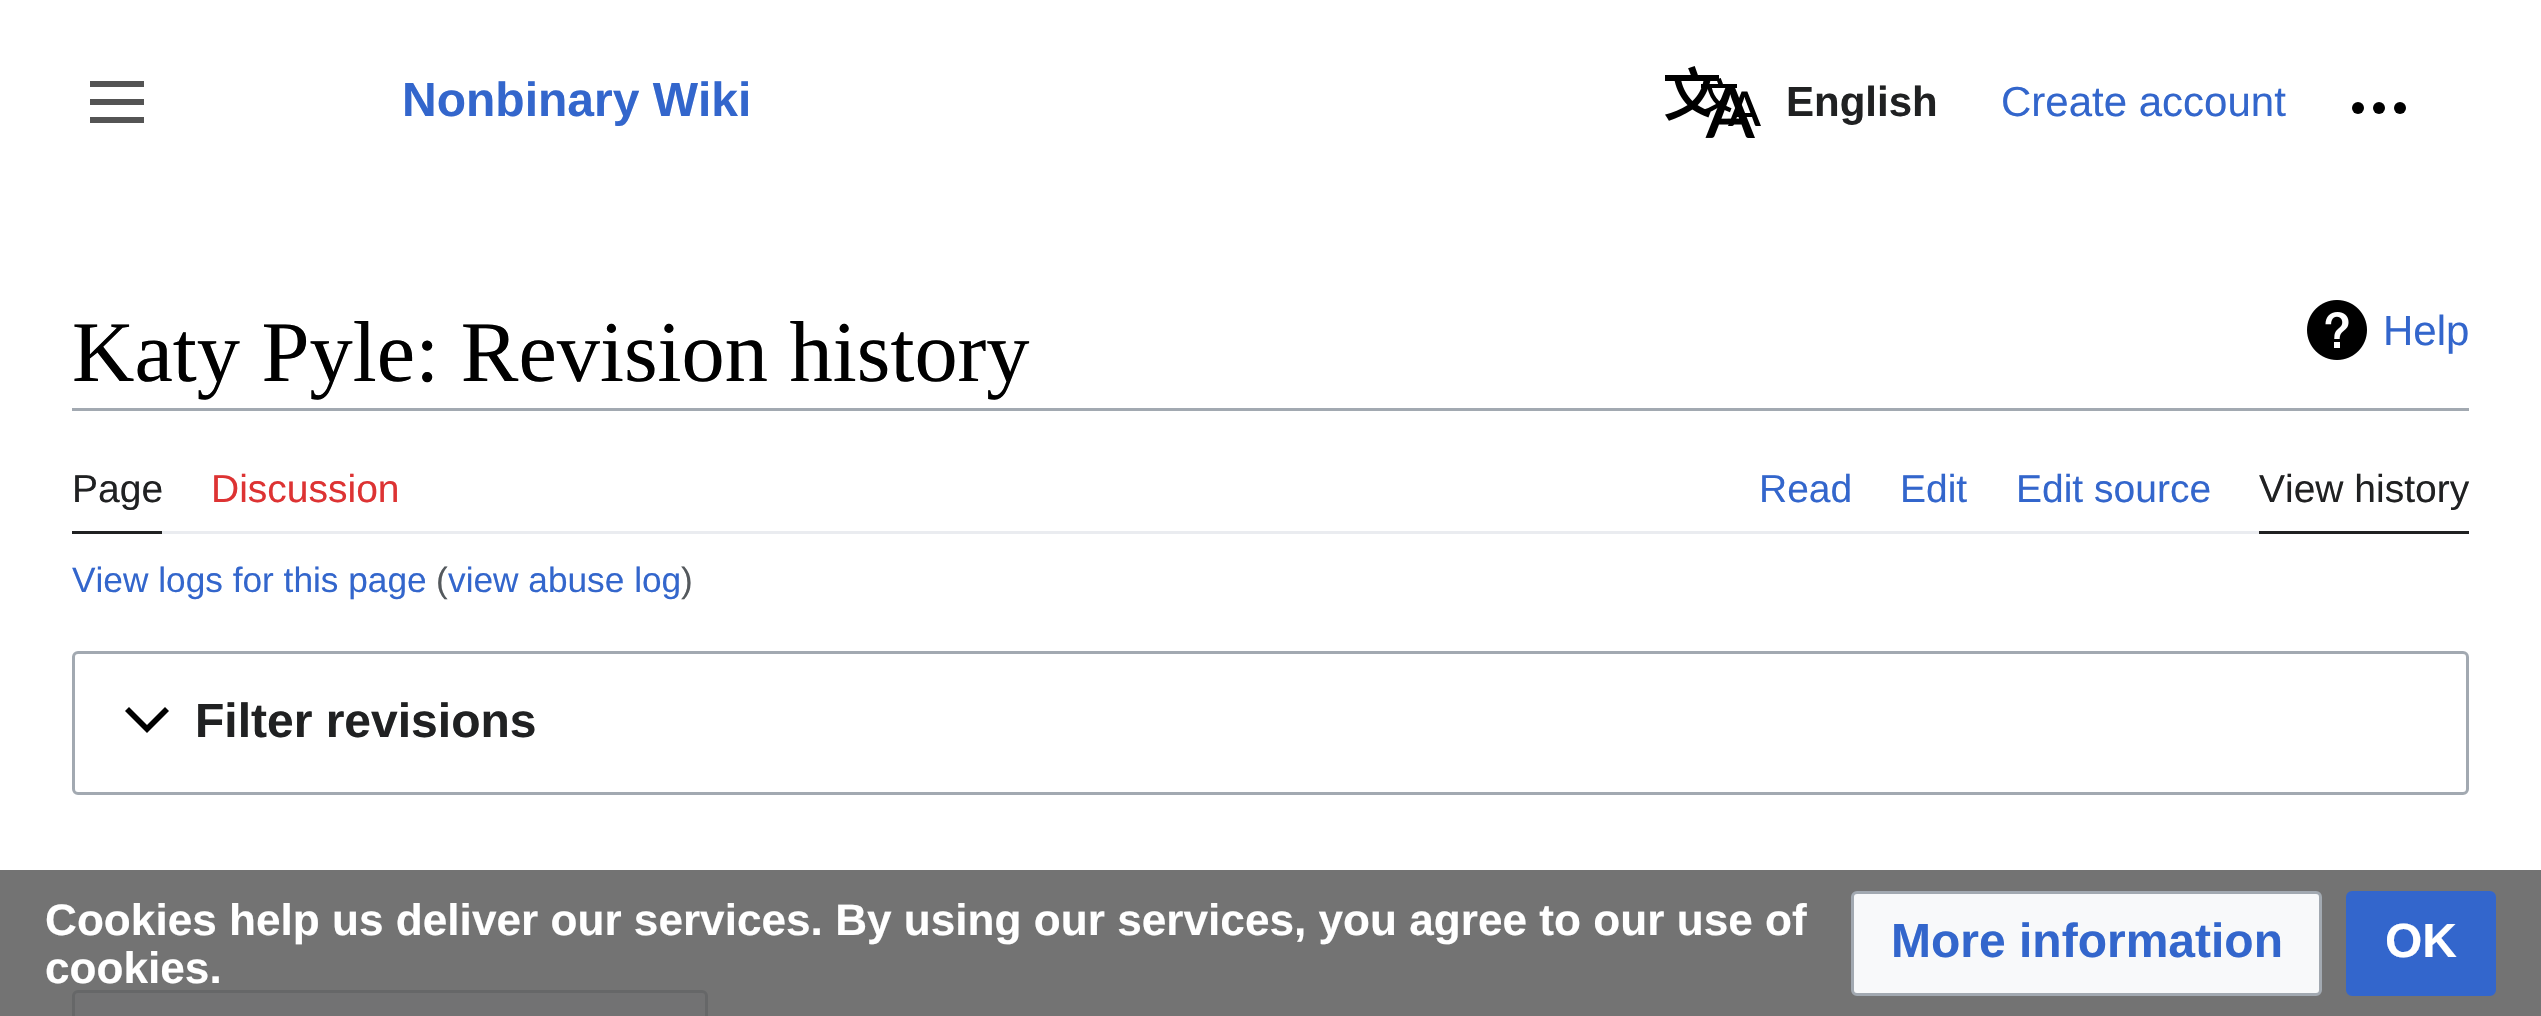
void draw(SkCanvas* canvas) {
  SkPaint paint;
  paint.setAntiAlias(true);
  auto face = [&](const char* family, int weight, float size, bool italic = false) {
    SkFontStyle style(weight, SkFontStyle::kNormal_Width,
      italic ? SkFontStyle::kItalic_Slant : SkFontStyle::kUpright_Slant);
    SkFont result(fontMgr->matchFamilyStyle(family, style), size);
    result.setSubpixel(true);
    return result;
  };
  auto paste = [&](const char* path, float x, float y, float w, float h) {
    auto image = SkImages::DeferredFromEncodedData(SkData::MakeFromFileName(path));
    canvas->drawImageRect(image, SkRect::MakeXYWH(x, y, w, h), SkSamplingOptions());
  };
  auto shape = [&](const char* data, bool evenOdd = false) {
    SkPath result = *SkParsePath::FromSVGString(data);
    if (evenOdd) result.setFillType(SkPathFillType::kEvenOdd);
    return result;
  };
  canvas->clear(0xffffffff);
  paint.setColor(0xff545454);
  canvas->drawPath(shape("M90 81V87H144V81ZM90 105H144V99H90ZM90 123H144V117H90Z"), paint);
  paste("img/1.png", 1665, 66, 90, 72);
  paste("img/2.png", 1701, 78, 60, 48);
  paste("img/3.png", 2352, 102, 54, 12);
  paint.setColor(0xffa2a9b1);
  canvas->drawRect(SkRect::MakeXYWH(72, 408, 2397, 3), paint);
  paste("img/4.png", 2307, 300, 60, 60);
  {
    const struct { float x, y, w, h; SkColor color; } items[] = {
      {162, 531, 2097, 3, 0xffeaecf0},
      {72, 531, 90, 3, 0xff202122},
      {2259, 531, 210, 3, 0xff202122},
    };
    for (auto [x, y, w, h, color] : items) {
      paint.setColor(color);
      canvas->drawRect(SkRect::MakeXYWH(x, y, w, h), paint);
    }
  }
  paint.setStroke(true);
  paint.setStrokeWidth(3);
  paint.setColor(0xffa2a9b1);
  canvas->drawRoundRect(SkRect::MakeXYWH(73.5f, 652.5f, 2394, 141), 4.5f, 4.5f, paint);
  paint.setStroke(false);
  paint.setColor(0xff000000);
  canvas->drawPath(shape("M165 707L147 725L129 707L125 711L147 733L169 711Z"), paint);
  paint.setColor(0xfff8f9fa);
  canvas->drawRoundRect(SkRect::MakeXYWH(73.5f, 991.5f, 633, 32), 4.5f, 4.5f, paint);
  paint.setStroke(true);
  paint.setColor(0xffa2a9b1);
  canvas->drawRoundRect(SkRect::MakeXYWH(73.5f, 991.5f, 633, 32), 4.5f, 4.5f, paint);
  paint.setStroke(false);
  paint.setColor(0xd95a5a5a);
  canvas->drawRect(SkRect::MakeXYWH(0, 870, 2541, 146), paint);
  paint.setColor(0xfff8f9fa);
  canvas->drawRoundRect(SkRect::MakeXYWH(1852.5f, 892.5f, 468, 102), 4.5f, 4.5f, paint);
  paint.setStroke(true);
  paint.setColor(0xffa2a9b1);
  canvas->drawRoundRect(SkRect::MakeXYWH(1852.5f, 892.5f, 468, 102), 4.5f, 4.5f, paint);
  paint.setStroke(false);
  paint.setColor(0xff3366cc);
  canvas->drawRoundRect(SkRect::MakeXYWH(2347.5f, 892.5f, 147, 102), 4.5f, 4.5f, paint);
  paint.setStroke(true);
  canvas->drawRoundRect(SkRect::MakeXYWH(2347.5f, 892.5f, 147, 102), 4.5f, 4.5f, paint);
  auto f0 = face("Liberation Sans", 700, 48);
  paint.setStroke(false);
  canvas->drawString("Nonbinary Wiki", 402, 116, f0, paint);
  auto f1 = face("Liberation Sans", 700, 42);
  paint.setColor(0xff202122);
  canvas->drawString("English", 1786, 116, f1, paint);
  auto f2 = face("Liberation Sans", 400, 42);
  paint.setColor(0xff3366cc);
  canvas->drawString("Create account", 2001, 116, f2, paint);
  auto f3 = face("Liberation Serif", 400, 86.4f);
  paint.setColor(0xff000000);
  canvas->drawString("Katy Pyle: Revision history", 72, 381, f3, paint);
  paint.setColor(0xff3366cc);
  canvas->drawString("Help", 2383, 345, f2, paint);
  auto f4 = face("Liberation Sans", 400, 39);
  paint.setColor(0xff202122);
  canvas->drawString("Page", 72, 502, f4, paint);
  paint.setColor(0xffdd3333);
  canvas->drawString("Discussion", 211, 502, f4, paint);
  paint.setColor(0xff3366cc);
  {
    const struct { const char* s; float x, y; } items[] = {
      {"Read", 1759, 502},
      {"Edit", 1900, 502},
      {"Edit source", 2016, 502},
    };
    for (auto [s, x, y] : items) {
      canvas->drawString(s, x, y, f4, paint);
    }
  }
  paint.setColor(0xff202122);
  canvas->drawString("View history", 2259, 502, f4, paint);
  auto f5 = face("Liberation Sans", 400, 35.25f);
  paint.setColor(0xff3366cc);
  canvas->drawString("View logs for this page", 72, 592, f5, paint);
  paint.setColor(0xff54595d);
  canvas->drawString("(", 436, 592, f5, paint);
  paint.setColor(0xff3366cc);
  canvas->drawString("view abuse log", 448, 592, f5, paint);
  paint.setColor(0xff54595d);
  canvas->drawString(")", 681, 592, f5, paint);
  paint.setColor(0xff202122);
  canvas->drawString("Filter revisions", 195, 737, f0, paint);
  auto f6 = face("Liberation Sans", 700, 44.15f);
  paint.setColor(0xffffffff);
  canvas->drawString("Cookies help us deliver our services. By using our services, you agree to our use of", 45, 935, f6, paint);
  canvas->drawString("cookies.", 45, 983, f6, paint);
  paint.setColor(0xff3366cc);
  canvas->drawString("More information", 1891, 957, f0, paint);
  paint.setColor(0xffffffff);
  canvas->drawString("OK", 2385, 957, f0, paint);
}
